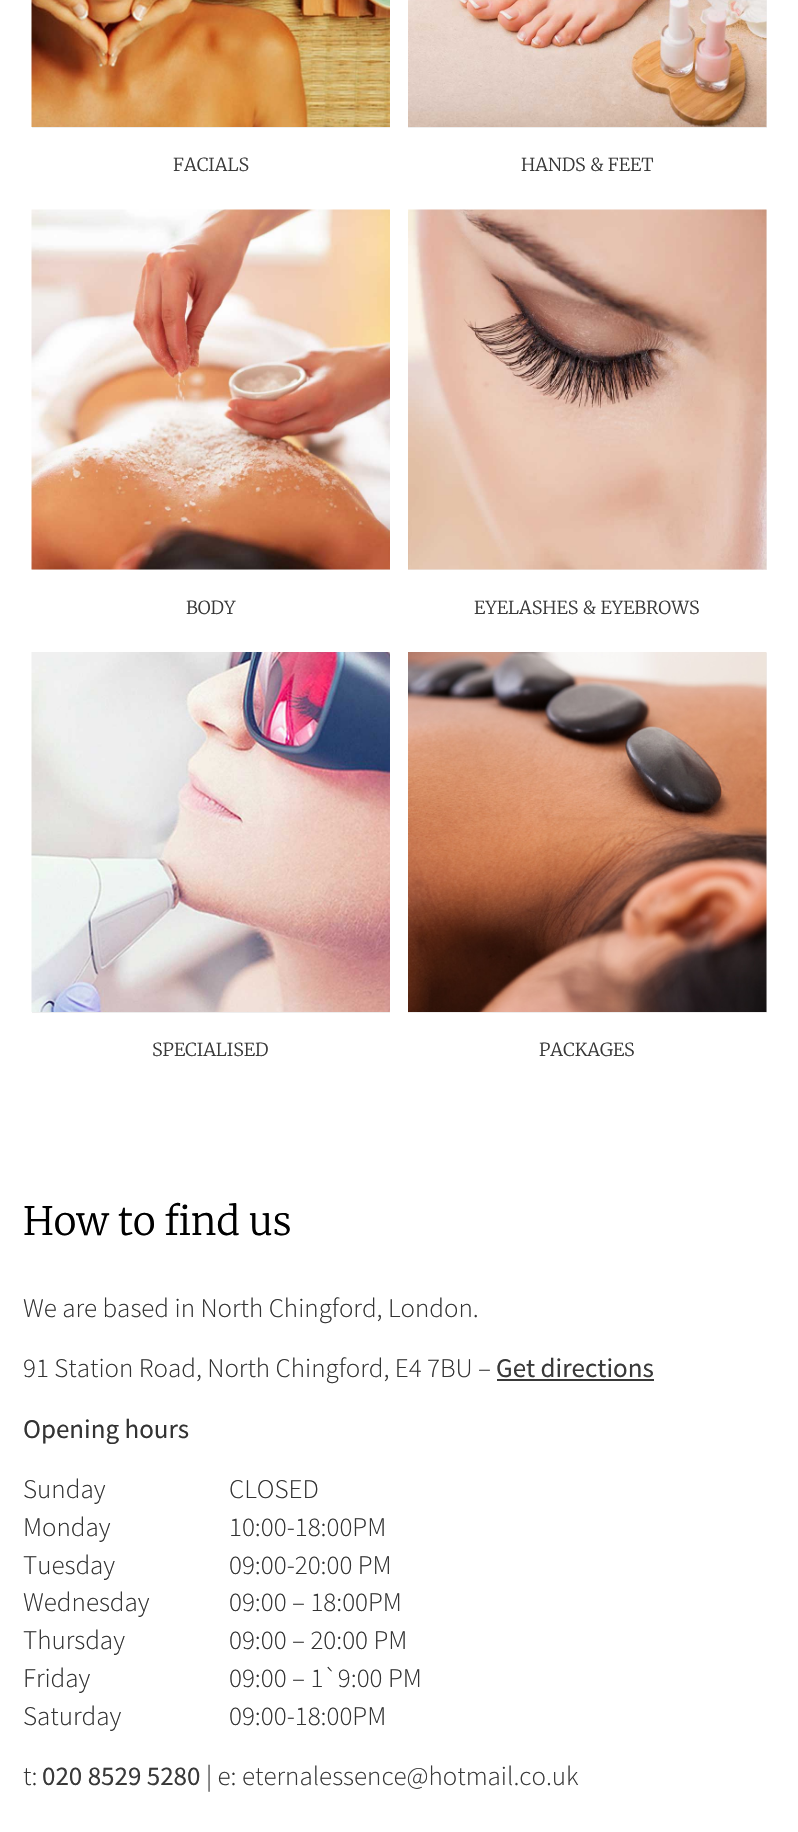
void draw(SkCanvas* canvas) {
  SkPaint paint;
  paint.setAntiAlias(true);
  auto face = [&](const char* family, int weight, float size, bool italic = false) {
    SkFontStyle style(weight, SkFontStyle::kNormal_Width,
      italic ? SkFontStyle::kItalic_Slant : SkFontStyle::kUpright_Slant);
    SkFont result(fontMgr->matchFamilyStyle(family, style), size);
    result.setSubpixel(true);
    return result;
  };
  auto paste = [&](const char* path, float x, float y, float w, float h) {
    auto image = SkImages::DeferredFromEncodedData(SkData::MakeFromFileName(path));
    canvas->drawImageRect(image, SkRect::MakeXYWH(x, y, w, h), SkSamplingOptions());
  };
  canvas->clear(0xffffffff);
  paint.setColor(0xffeeeeee);
  canvas->drawRect(SkRect::MakeXYWH(32, 127, 358, 1), paint);
  paste("img/1.png", 31, 0, 359, 127);
  canvas->drawRect(SkRect::MakeXYWH(408, 0, 359, 128), paint);
  paste("img/2.png", 408, 0, 359, 127);
  canvas->drawRect(SkRect::MakeXYWH(32, 569, 358, 1), paint);
  paste("img/3.png", 31, 209, 359, 361);
  canvas->drawRect(SkRect::MakeXYWH(408, 210, 359, 360), paint);
  paste("img/4.png", 408, 209, 359, 361);
  canvas->drawRect(SkRect::MakeXYWH(32, 1012, 358, 1), paint);
  paste("img/5.png", 31, 652, 359, 360);
  canvas->drawRect(SkRect::MakeXYWH(408, 653, 359, 360), paint);
  paste("img/6.png", 408, 652, 359, 360);
  paint.setColor(0xff393939);
  canvas->drawRect(SkRect::MakeXYWH(497, 1379, 157, 2), paint);
  auto f0 = face("Merriweather", 300, 18);
  {
    const struct { const char* s; float x, y; } items[] = {
      {"FACIALS", 173, 171},
      {"HANDS & FEET", 521, 171},
      {"BODY", 186, 614},
      {"EYELASHES & EYEBROWS", 474, 614},
      {"SPECIALISED", 152, 1056},
      {"PACKAGES", 539, 1056},
    };
    for (auto [s, x, y] : items) {
      canvas->drawString(s, x, y, f0, paint);
    }
  }
  auto f1 = face("Merriweather", 300, 39);
  paint.setColor(0xff000000);
  canvas->drawString("How to find us", 23, 1235, f1, paint);
  auto f2 = face("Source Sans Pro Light", 300, 27);
  paint.setColor(0xff333333);
  canvas->drawString("We are based in North Chingford, London.", 23, 1317, f2, paint);
  canvas->drawString("91 Station Road, North Chingford, E4 7BU –", 23, 1377, f2, paint);
  auto f3 = face("Source Sans Pro", 400, 27);
  paint.setColor(0xff393939);
  canvas->drawString("Get directions", 496, 1377, f3, paint);
  paint.setColor(0xff333333);
  canvas->drawString("Opening hours", 23, 1438, f3, paint);
  {
    const struct { const char* s; float x, y; } items[] = {
      {"Sunday", 23, 1498},
      {"CLOSED", 229, 1498},
      {"Monday", 23, 1536},
      {"10:00-18:00PM", 229, 1536},
      {"Tuesday", 23, 1574},
      {"09:00-20:00 PM", 229, 1574},
      {"Wednesday", 23, 1611},
      {"09:00 – 18:00PM", 229, 1611},
      {"Thursday", 23, 1649},
      {"09:00 – 20:00 PM", 229, 1649},
      {"Friday", 23, 1687},
      {"09:00 – 1`9:00 PM", 229, 1687},
      {"Saturday", 23, 1725},
      {"09:00-18:00PM", 229, 1725},
      {"t:", 23, 1785},
    };
    for (auto [s, x, y] : items) {
      canvas->drawString(s, x, y, f2, paint);
    }
  }
  paint.setColor(0xff393939);
  canvas->drawString("020 8529 5280", 42, 1785, f3, paint);
  paint.setColor(0xff333333);
  canvas->drawString("| e:", 206, 1785, f2, paint);
  paint.setColor(0xff393939);
  canvas->drawString("eternalessence@hotmail.co.uk", 242, 1785, f2, paint);
}
